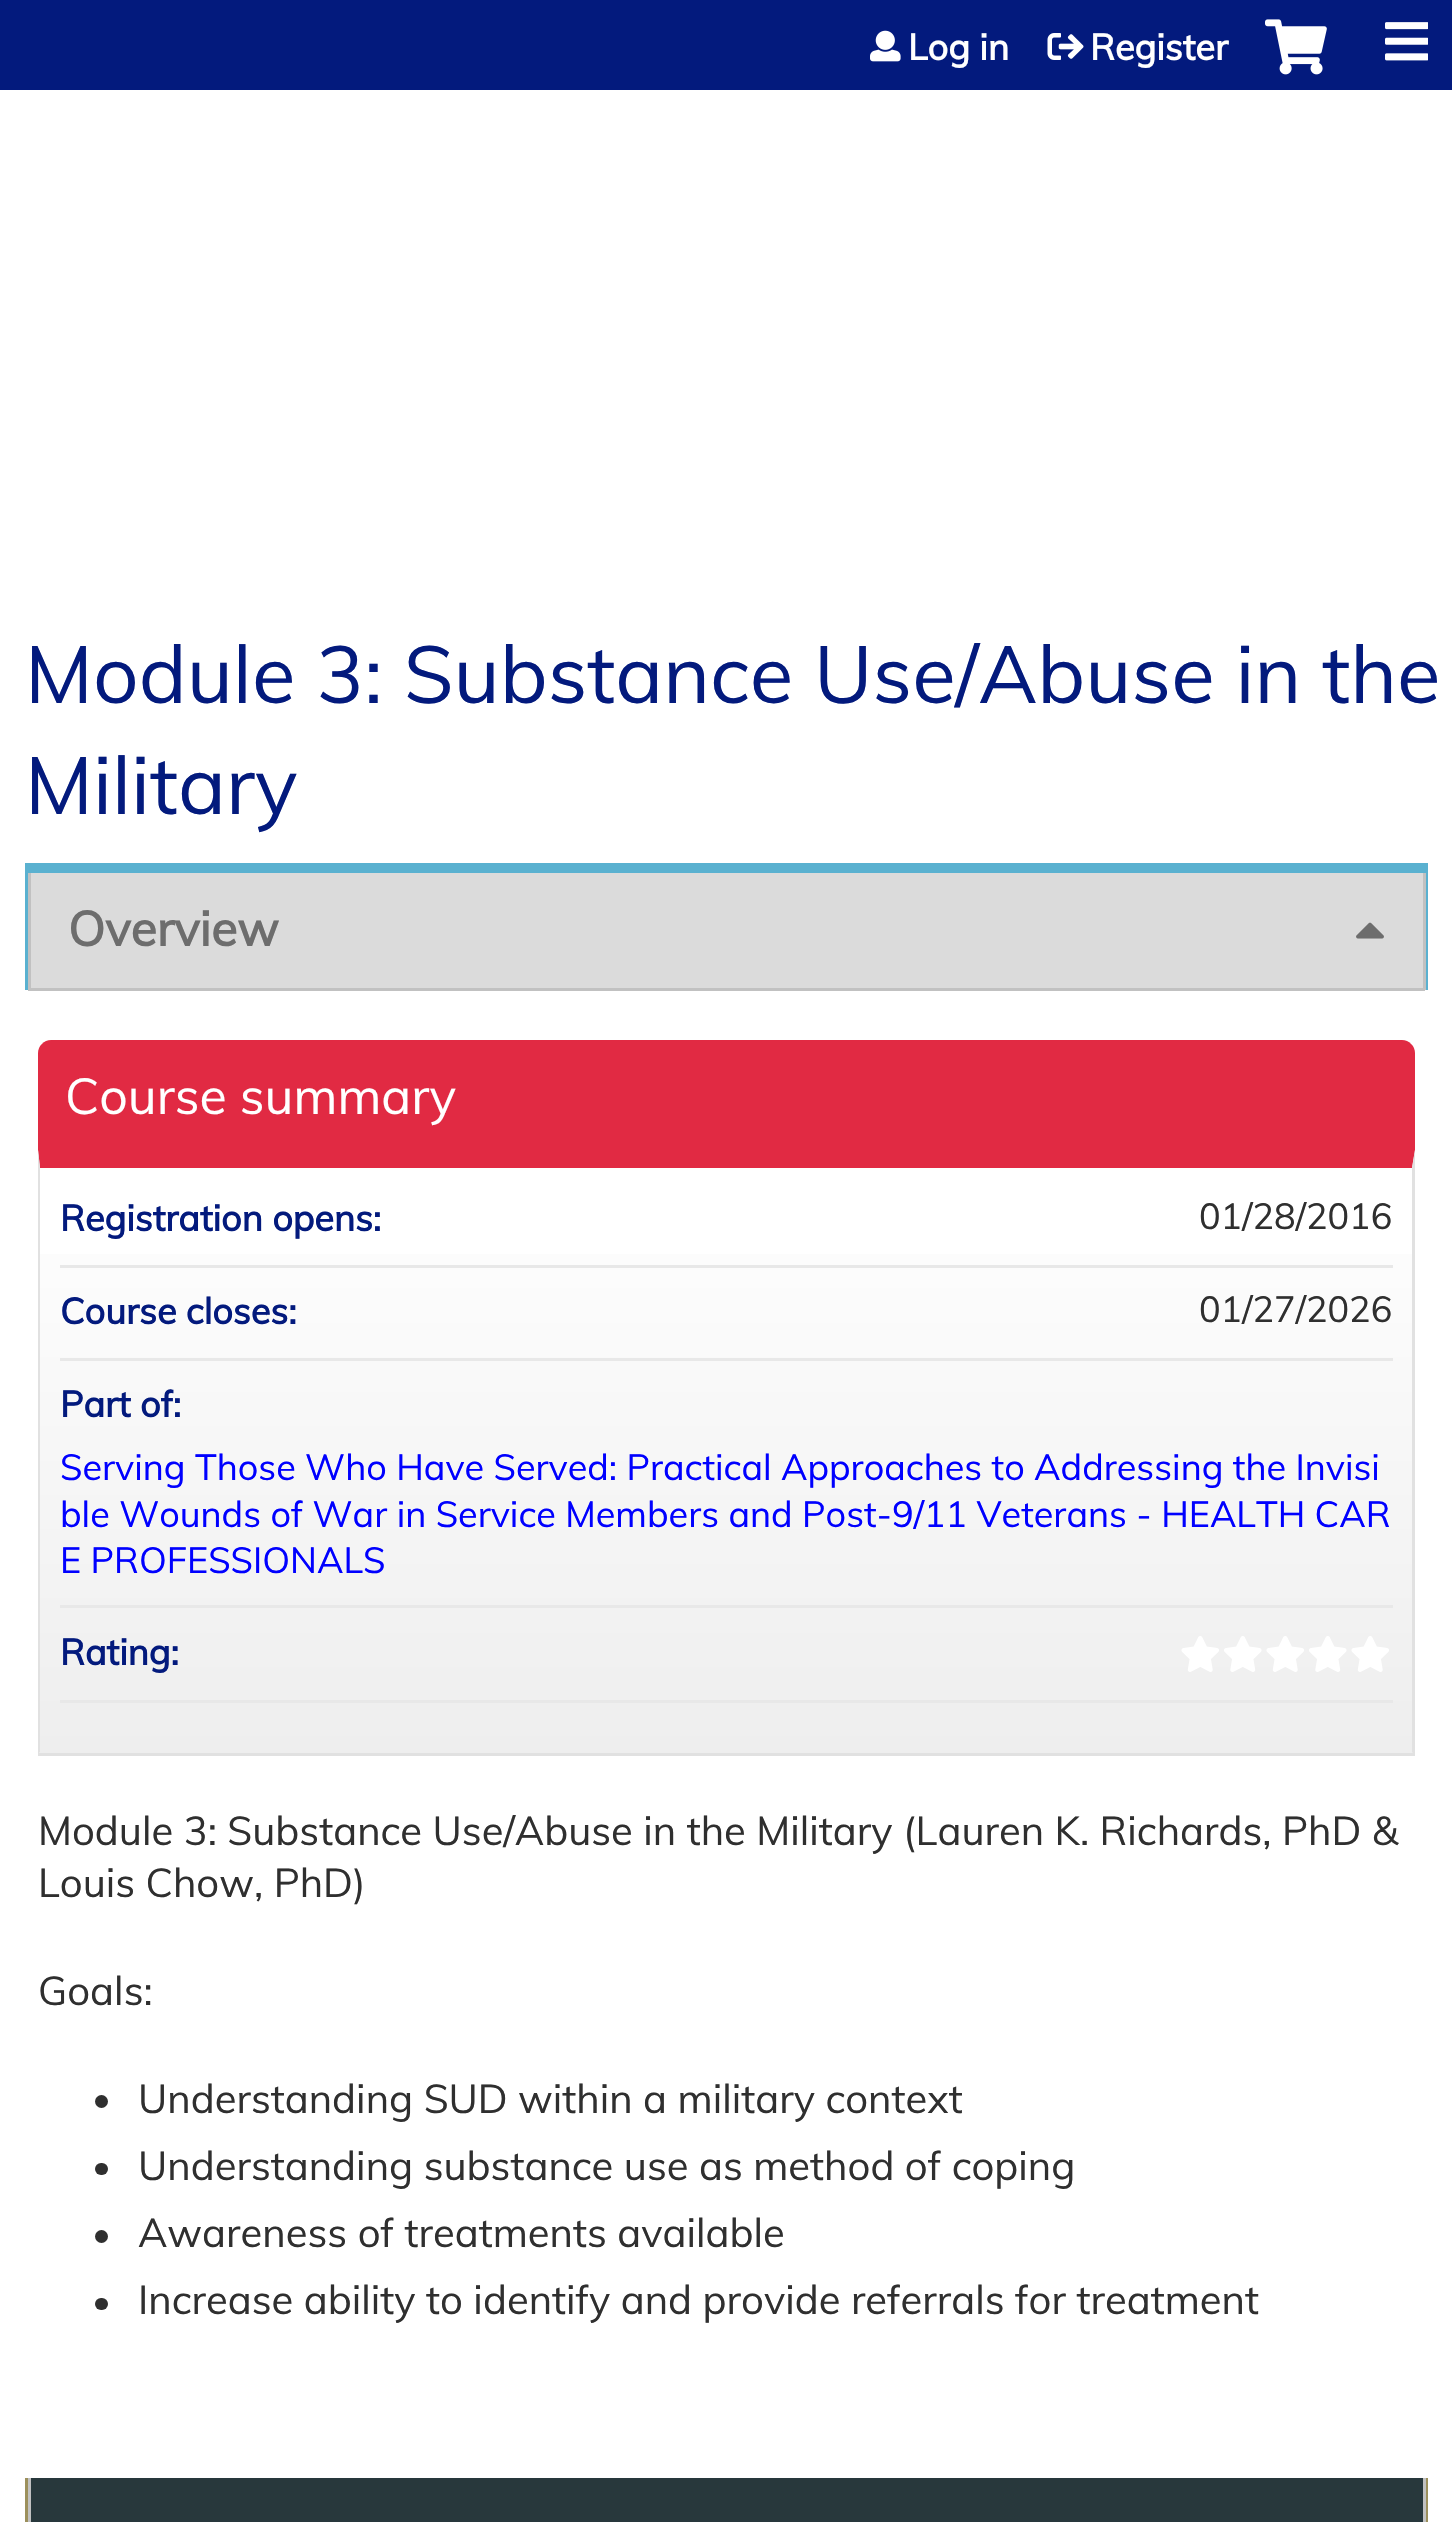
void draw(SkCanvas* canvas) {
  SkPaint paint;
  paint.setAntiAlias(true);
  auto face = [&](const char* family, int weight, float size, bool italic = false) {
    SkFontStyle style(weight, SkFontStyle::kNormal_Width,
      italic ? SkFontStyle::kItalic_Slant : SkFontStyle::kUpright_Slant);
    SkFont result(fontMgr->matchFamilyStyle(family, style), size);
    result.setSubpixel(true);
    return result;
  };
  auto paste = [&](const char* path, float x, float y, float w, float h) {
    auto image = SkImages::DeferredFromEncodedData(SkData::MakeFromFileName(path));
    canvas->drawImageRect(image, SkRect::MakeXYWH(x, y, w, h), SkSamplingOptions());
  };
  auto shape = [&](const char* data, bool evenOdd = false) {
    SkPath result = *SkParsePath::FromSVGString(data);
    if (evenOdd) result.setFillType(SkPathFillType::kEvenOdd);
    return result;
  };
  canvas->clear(0xffffffff);
  paint.setColor(0xff031a7d);
  canvas->drawRect(SkRect::MakeXYWH(0, 0, 1452, 90), paint);
  paste("img/1.png", 870, 30, 31, 32);
  paste("img/2.png", 1047, 33, 37, 27);
  paste("img/3.png", 1265, 19, 62, 56);
  paste("img/4.png", 1385, 22, 43, 39);
  {
    const struct { float x, y, w, h; SkColor color; } items[] = {
      {28, 863, 1397, 10, 0xff5ab1d0},
      {1425, 863, 3, 127, 0xff5ab1d0},
      {25, 863, 3, 127, 0xff5ab1d0},
      {31, 873, 1392, 115, 0xffdbdbdb},
      {1423, 873, 3, 117, 0xffc1c1c1},
      {28, 988, 1397, 3, 0xffc1c1c1},
      {28, 873, 3, 117, 0xffc1c1c1},
    };
    for (auto [x, y, w, h, color] : items) {
      paint.setColor(color);
      canvas->drawRect(SkRect::MakeXYWH(x, y, w, h), paint);
    }
  }
  paste("img/5.png", 1356, 922, 28, 17);
  paint.setColor(0xffe12a43);
  canvas->drawPath(shape("M51 1040H1402C1409 1040 1415 1046 1415 1053V1150H38V1053C38 1046 44 1040 51 1040Z"), paint);
  {
    const SkColor colors[] = {0xffeeeeee, 0xffffffff};
    const float stops[] = {0, 1};
    const SkPoint ends[] = {{726, 1753}, {726, 1168}};
    paint.setShader(SkGradientShader::MakeLinear(ends, colors, stops, 2, SkTileMode::kClamp));
    paint.setAlpha(255);
  }
  canvas->drawRect(SkRect::MakeXYWH(40, 1254, 1373, 499), paint);
  paint.setShader(nullptr);
  paint.setColor(0xffe12a43);
  canvas->drawPath(shape("M38 1150H1415L1412 1168H40Z"), paint);
  paint.setColor(0xffe1e1e1);
  canvas->drawPath(shape("M1415 1150V1755L1412 1752V1168Z"), paint);
  canvas->drawRect(SkRect::MakeXYWH(38, 1753, 1377, 3), paint);
  canvas->drawPath(shape("M38 1755V1150L40 1168V1752Z"), paint);
  {
    const struct { float x, y, w, h; SkColor color; } items[] = {
      {60, 1265, 1333, 3, 0xffe8e8e8},
      {60, 1358, 1333, 3, 0xffe8e8e8},
      {60, 1605, 1333, 3, 0xffe8e8e8},
      {60, 1700, 1333, 3, 0xffe8e8e8},
    };
    for (auto [x, y, w, h, color] : items) {
      paint.setColor(color);
      canvas->drawRect(SkRect::MakeXYWH(x, y, w, h), paint);
    }
  }
  paste("img/6.png", 1181, 1636, 38, 36);
  paste("img/7.png", 1224, 1636, 38, 36);
  paste("img/6.png", 1266, 1636, 38, 36);
  paste("img/7.png", 1309, 1636, 38, 36);
  paste("img/6.png", 1351, 1636, 38, 36);
  paint.setColor(0xff2f2f2f);
  canvas->drawCircle(101.5f, 2101.5f, 6.5f, paint);
  canvas->drawRoundRect(SkRect::MakeXYWH(95, 2163, 13, 12), 6, 6, paint);
  canvas->drawCircle(101.5f, 2236.5f, 6.5f, paint);
  canvas->drawRoundRect(SkRect::MakeXYWH(95, 2298, 13, 12), 6, 6, paint);
  {
    const struct { float x, y, w, h; SkColor color; } items[] = {
      {1426, 2478, 2, 44, 0xff9c905c},
      {25, 2478, 3, 44, 0xff9c905c},
      {31, 2478, 1392, 44, 0xff28383c},
      {1423, 2478, 3, 44, 0xffc1c1c1},
      {28, 2478, 3, 44, 0xffc1c1c1},
    };
    for (auto [x, y, w, h, color] : items) {
      paint.setColor(color);
      canvas->drawRect(SkRect::MakeXYWH(x, y, w, h), paint);
    }
  }
  auto f0 = face("Muli", 700, 36);
  paint.setColor(0xffffffff);
  canvas->drawString("Log in", 908, 60, f0, paint);
  canvas->drawString("Register", 1090, 60, f0, paint);
  auto f1 = face("Muli", 400, 80);
  paint.setColor(0xff031a7d);
  canvas->drawString("Module 3: Substance Use/Abuse in the", 25, 703, f1, paint);
  canvas->drawString("Military", 25, 814, f1, paint);
  auto f2 = face("Muli", 700, 48);
  paint.setColor(0xff6d6d6d);
  canvas->drawString("Overview", 68, 946, f2, paint);
  auto f3 = face("Muli", 400, 50);
  paint.setColor(0xffffffff);
  canvas->drawString("Course summary", 65, 1114, f3, paint);
  paint.setColor(0xff031a7d);
  canvas->drawString("Registration opens:", 60, 1231, f0, paint);
  auto f4 = face("Muli", 400, 36);
  paint.setColor(0xff2f2f2f);
  canvas->drawString("01/28/2016", 1199, 1229, f4, paint);
  paint.setColor(0xff031a7d);
  canvas->drawString("Course closes:", 60, 1324, f0, paint);
  paint.setColor(0xff2f2f2f);
  canvas->drawString("01/27/2026", 1199, 1322, f4, paint);
  paint.setColor(0xff031a7d);
  canvas->drawString("Part of:", 60, 1417, f0, paint);
  paint.setColor(0xff0000ff);
  {
    const struct { const char* s; float x, y; } items[] = {
      {"Serving Those Who Have Served: Practical Approaches to Addressing the Invisi", 60, 1480},
      {"ble Wounds of War in Service Members and Post-9/11 Veterans - HEALTH CAR", 60, 1527},
      {"E PROFESSIONALS", 60, 1573},
    };
    for (auto [s, x, y] : items) {
      canvas->drawString(s, x, y, f4, paint);
    }
  }
  paint.setColor(0xff031a7d);
  canvas->drawString("Rating:", 60, 1665, f0, paint);
  auto f5 = face("Muli", 400, 40);
  paint.setColor(0xff2f2f2f);
  {
    const struct { const char* s; float x, y; } items[] = {
      {"Module 3: Substance Use/Abuse in the Military (Lauren K. Richards, PhD &", 38, 1845},
      {"Louis Chow, PhD)", 38, 1897},
      {"Goals:", 38, 2005},
      {"Understanding SUD within a military context", 138, 2113},
      {"Understanding substance use as method of coping", 138, 2180},
      {"Awareness of treatments available", 138, 2247},
      {"Increase ability to identify and provide referrals for treatment", 138, 2314},
    };
    for (auto [s, x, y] : items) {
      canvas->drawString(s, x, y, f5, paint);
    }
  }
}
